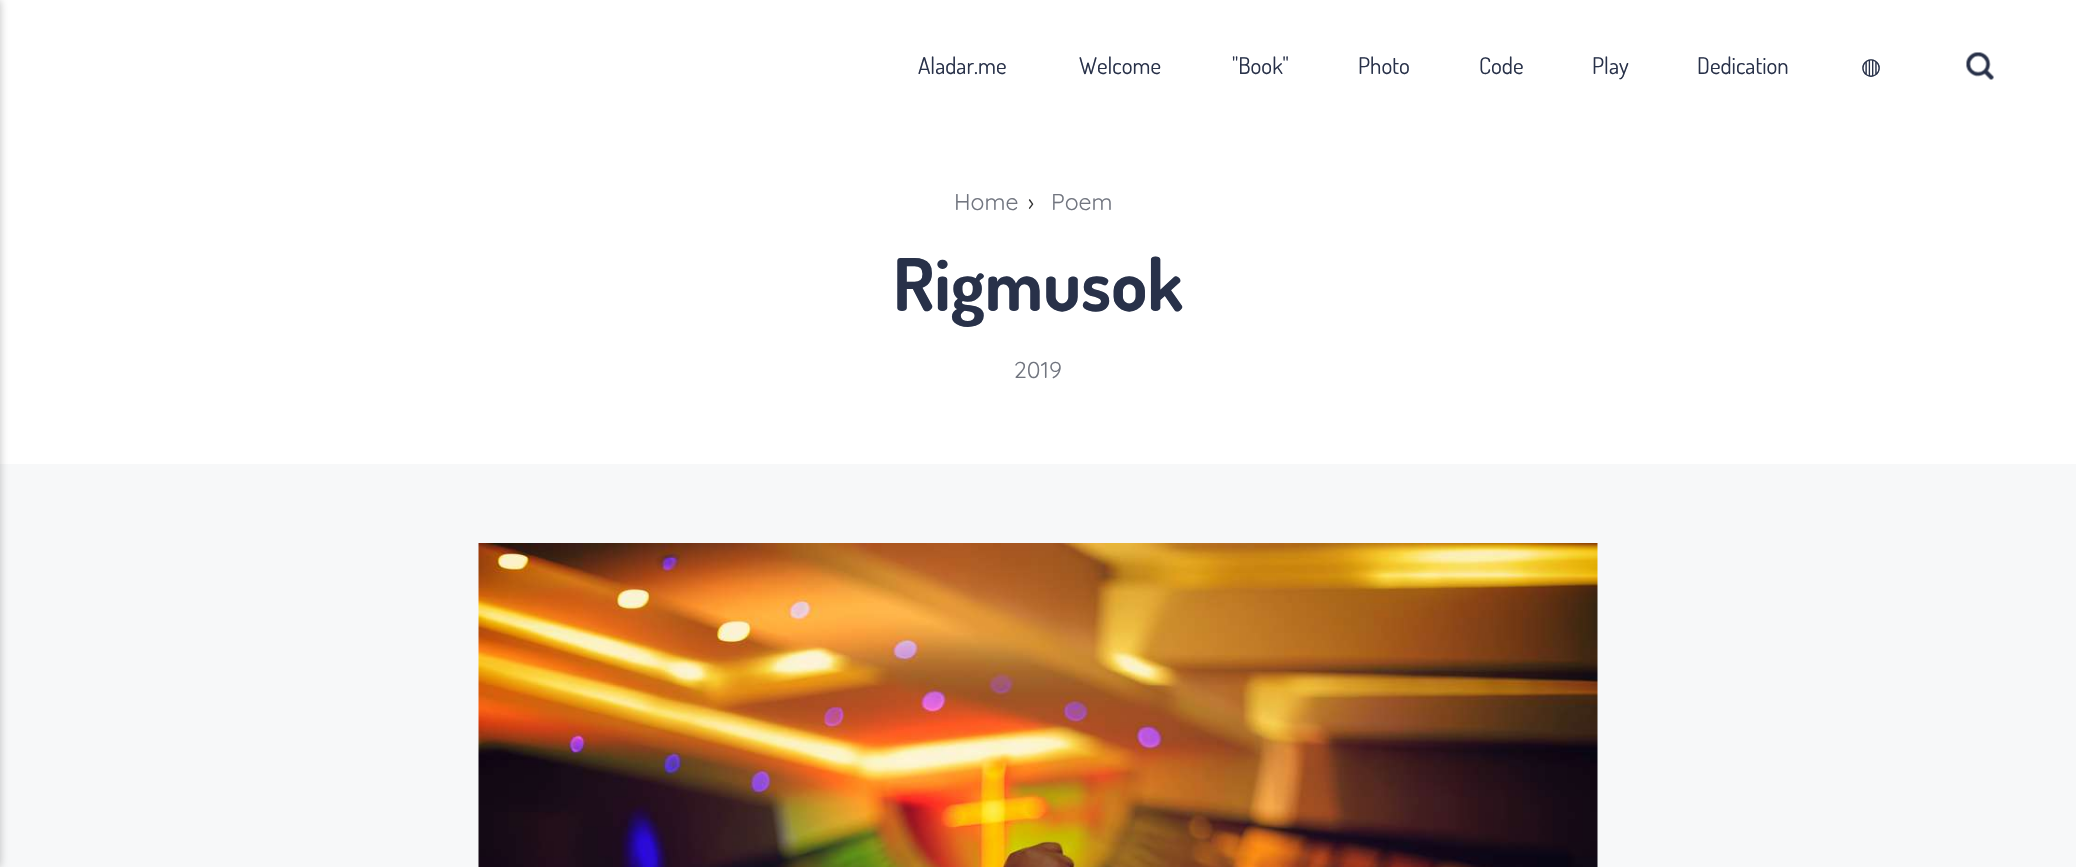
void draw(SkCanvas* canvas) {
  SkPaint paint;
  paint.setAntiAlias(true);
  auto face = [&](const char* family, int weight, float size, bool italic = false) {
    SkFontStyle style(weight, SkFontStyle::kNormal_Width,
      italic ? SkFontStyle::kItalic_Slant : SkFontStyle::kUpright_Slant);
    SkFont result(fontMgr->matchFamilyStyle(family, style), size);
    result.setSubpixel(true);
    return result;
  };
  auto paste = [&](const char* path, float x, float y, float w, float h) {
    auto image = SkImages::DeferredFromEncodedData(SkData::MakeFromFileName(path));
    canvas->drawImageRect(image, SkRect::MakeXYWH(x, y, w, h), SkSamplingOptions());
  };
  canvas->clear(0xffffffff);
  paint.setColor(0xfff7f8f9);
  canvas->drawRect(SkRect::MakeXYWH(0, 464, 2076, 403), paint);
  paint.setColor(0x40000000);
  paint.setMaskFilter(SkMaskFilter::MakeBlur(kNormal_SkBlurStyle, 4));
  canvas->drawRect(SkRect::MakeXYWH(-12, 0, 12, 867), paint);
  paint.setMaskFilter(nullptr);
  paste("img/1.png", 1966, 52, 28, 28);
  paste("img/2.png", 478, 543, 1120, 324);
  auto f0 = face("Dosis", 400, 23);
  paint.setColor(0xff283149);
  {
    const struct { const char* s; float x, y; } items[] = {
      {"Aladar.me", 918, 74},
      {"Welcome", 1079, 74},
      {"\"Book\"", 1232, 74},
      {"Photo", 1358, 74},
      {"Code", 1479, 74},
      {"Play", 1592, 74},
      {"Dedication", 1697, 74},
    };
    for (auto [s, x, y] : items) {
      canvas->drawString(s, x, y, f0, paint);
    }
  }
  auto f1 = face("DejaVu Sans", 400, 23);
  canvas->drawString("◍", 1861, 74, f1, paint);
  auto f2 = face("Quicksand", 400, 23);
  paint.setColor(0xff71757f);
  canvas->drawString("Home", 954, 210, f2, paint);
  paint.setColor(0xff343435);
  canvas->drawString("›", 1028, 210, f2, paint);
  paint.setColor(0xff71757f);
  canvas->drawString("Poem", 1051, 210, f2, paint);
  auto f3 = face("Dosis", 700, 72.5f);
  paint.setColor(0xff283149);
  canvas->drawString("Rigmusok", 893, 311, f3, paint);
  paint.setColor(0xff71757f);
  canvas->drawString("2019", 1014, 378, f2, paint);
}
